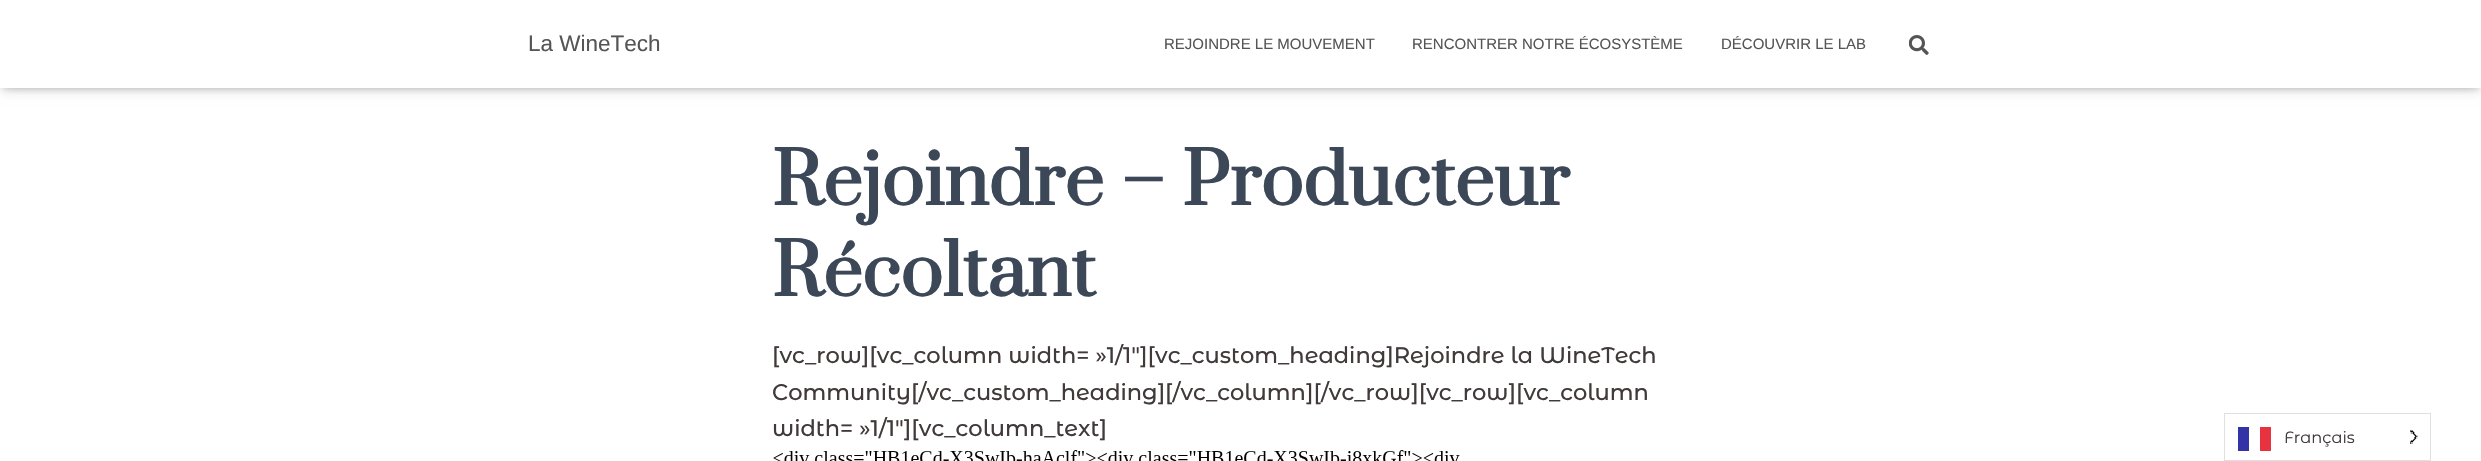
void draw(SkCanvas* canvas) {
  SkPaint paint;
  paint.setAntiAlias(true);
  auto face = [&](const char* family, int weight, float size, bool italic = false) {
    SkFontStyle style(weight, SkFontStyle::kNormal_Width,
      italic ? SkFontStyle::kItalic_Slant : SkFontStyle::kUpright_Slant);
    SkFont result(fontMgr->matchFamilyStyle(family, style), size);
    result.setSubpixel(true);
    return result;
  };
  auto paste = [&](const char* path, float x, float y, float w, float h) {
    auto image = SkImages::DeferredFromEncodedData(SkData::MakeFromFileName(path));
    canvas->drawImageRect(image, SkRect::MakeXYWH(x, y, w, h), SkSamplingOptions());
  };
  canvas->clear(0xffffffff);
  paint.setColor(0x1a000000);
  paint.setMaskFilter(SkMaskFilter::MakeBlur(kNormal_SkBlurStyle, 3));
  canvas->drawRect(SkRect::MakeXYWH(3, 8, 2476, 82), paint);
  paint.setMaskFilter(nullptr);
  paint.setColor(0x1f000000);
  paint.setMaskFilter(SkMaskFilter::MakeBlur(kNormal_SkBlurStyle, 6));
  canvas->drawRect(SkRect::MakeXYWH(0, 1, 2481, 88), paint);
  paint.setMaskFilter(nullptr);
  paint.setColor(0x6b000000);
  paint.setMaskFilter(SkMaskFilter::MakeBlur(kNormal_SkBlurStyle, 6));
  canvas->drawRect(SkRect::MakeXYWH(8, 9, 2466, 72), paint);
  paint.setMaskFilter(nullptr);
  paint.setColor(0xffffffff);
  canvas->drawRect(SkRect::MakeXYWH(0, 0, 2481, 88), paint);
  paste("img/1.png", 1909, 35, 20, 20);
  paste("img/2.png", 773, 450, 687, 11);
  paint.setStroke(true);
  paint.setStrokeWidth(1);
  paint.setColor(0xffe0e0e0);
  canvas->drawRect(SkRect::MakeXYWH(2224.5f, 413.5f, 206, 47), paint);
  paint.setStroke(false);
  paint.setColor(0xff3333a7);
  canvas->drawRect(SkRect::MakeXYWH(2238, 427, 11, 24), paint);
  paint.setColor(0xffe7333f);
  canvas->drawRect(SkRect::MakeXYWH(2260, 427, 11, 24), paint);
  paste("img/3.png", 2410, 430, 8, 14);
  auto f0 = face("Liberation Sans", 400, 22.5f);
  paint.setColor(0xff555555);
  canvas->drawString("La WineTech", 528, 51, f0, paint);
  auto f1 = face("Liberation Sans", 400, 15);
  {
    const struct { const char* s; float x, y; } items[] = {
      {"REJOINDRE LE MOUVEMENT", 1164, 49},
      {"RENCONTRER NOTRE ÉCOSYSTÈME", 1412, 49},
      {"DÉCOUVRIR LE LAB", 1721, 49},
    };
    for (auto [s, x, y] : items) {
      canvas->drawString(s, x, y, f1, paint);
    }
  }
  auto f2 = face("Prata", 700, 70);
  paint.setColor(0xff3c4858);
  canvas->drawString("Rejoindre – Producteur", 772, 205, f2, paint);
  canvas->drawString("Récoltant", 772, 296, f2, paint);
  auto f3 = face("Montserrat Alternates", 500, 22.5f);
  paint.setColor(0xff423a3a);
  {
    const struct { const char* s; float x, y; } items[] = {
      {"[vc_row][vc_column width= »1/1″][vc_custom_heading]Rejoindre la WineTech", 772, 363},
      {"Community[/vc_custom_heading][/vc_column][/vc_row][vc_row][vc_column", 772, 400},
      {"width= »1/1″][vc_column_text]", 772, 436},
    };
    for (auto [s, x, y] : items) {
      canvas->drawString(s, x, y, f3, paint);
    }
  }
  auto f4 = face("Montserrat Alternates", 400, 16.25f);
  canvas->drawString("Français", 2284, 443, f4, paint);
}
